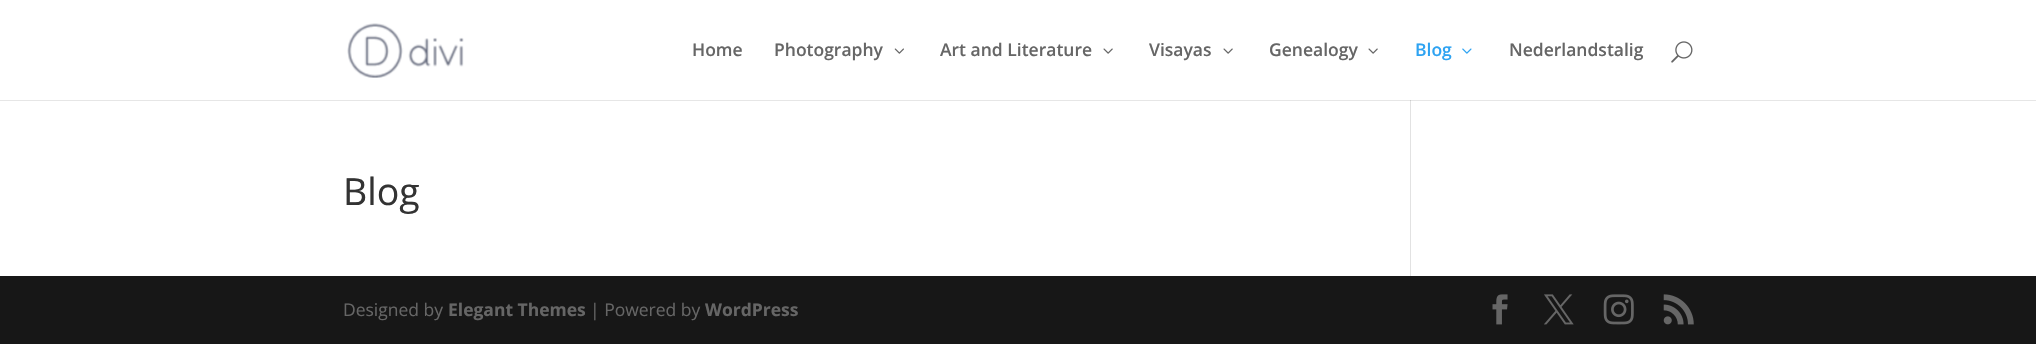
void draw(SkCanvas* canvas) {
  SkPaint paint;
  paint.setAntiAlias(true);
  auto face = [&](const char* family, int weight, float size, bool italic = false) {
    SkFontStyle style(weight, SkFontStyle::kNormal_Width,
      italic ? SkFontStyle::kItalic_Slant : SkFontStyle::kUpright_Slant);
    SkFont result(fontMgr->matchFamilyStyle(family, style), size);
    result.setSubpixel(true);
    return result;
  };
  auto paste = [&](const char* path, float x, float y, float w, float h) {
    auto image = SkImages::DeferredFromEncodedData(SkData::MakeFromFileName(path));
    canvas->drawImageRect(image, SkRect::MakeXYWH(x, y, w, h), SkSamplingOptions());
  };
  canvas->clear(0xffffffff);
  paint.setColor(0xffe6e6e6);
  canvas->drawRect(SkRect::MakeXYWH(0, 100, 2036, 1), paint);
  paste("img/1.png", 347, 23, 117, 55);
  paste("img/2.png", 894, 48, 10, 6);
  paste("img/3.png", 1103, 48, 10, 6);
  paste("img/3.png", 1223, 48, 10, 6);
  paste("img/3.png", 1368, 48, 10, 6);
  paste("img/4.png", 1462, 48, 10, 6);
  paste("img/5.png", 1671, 41, 22, 22);
  {
    const struct { float x, y, w, h; SkColor color; } items[] = {
      {1410, 100, 1, 176, 0xffe2e2e2},
      {1410, 100, 1, 1, 0xffcbcbcb},
      {0, 276, 2036, 68, 0xff171717},
    };
    for (auto [x, y, w, h, color] : items) {
      paint.setColor(color);
      canvas->drawRect(SkRect::MakeXYWH(x, y, w, h), paint);
    }
  }
  paste("img/6.png", 1492, 294, 16, 31);
  paste("img/7.png", 1544, 294, 30, 31);
  paste("img/8.png", 1603, 294, 31, 31);
  paste("img/9.png", 1663, 294, 31, 31);
  auto f0 = face("Open Sans", 600, 17.5f);
  paint.setColor(0xff666666);
  {
    const struct { const char* s; float x, y; } items[] = {
      {"Home", 692, 56},
      {"Photography", 774, 56},
      {"Art and Literature", 940, 56},
      {"Visayas", 1149, 56},
      {"Genealogy", 1269, 56},
    };
    for (auto [s, x, y] : items) {
      canvas->drawString(s, x, y, f0, paint);
    }
  }
  paint.setColor(0xff2ea3f2);
  canvas->drawString("Blog", 1415, 56, f0, paint);
  paint.setColor(0xff666666);
  canvas->drawString("Nederlandstalig", 1509, 56, f0, paint);
  auto f1 = face("Open Sans", 400, 37.5f);
  paint.setColor(0xff333333);
  canvas->drawString("Blog", 343, 205, f1, paint);
  auto f2 = face("Open Sans", 400, 17.5f);
  paint.setColor(0xff666666);
  canvas->drawString("Designed by", 343, 316, f2, paint);
  auto f3 = face("Open Sans", 700, 17.5f);
  canvas->drawString("Elegant Themes", 448, 316, f3, paint);
  canvas->drawString("| Powered by", 590, 316, f2, paint);
  canvas->drawString("WordPress", 705, 316, f3, paint);
}
